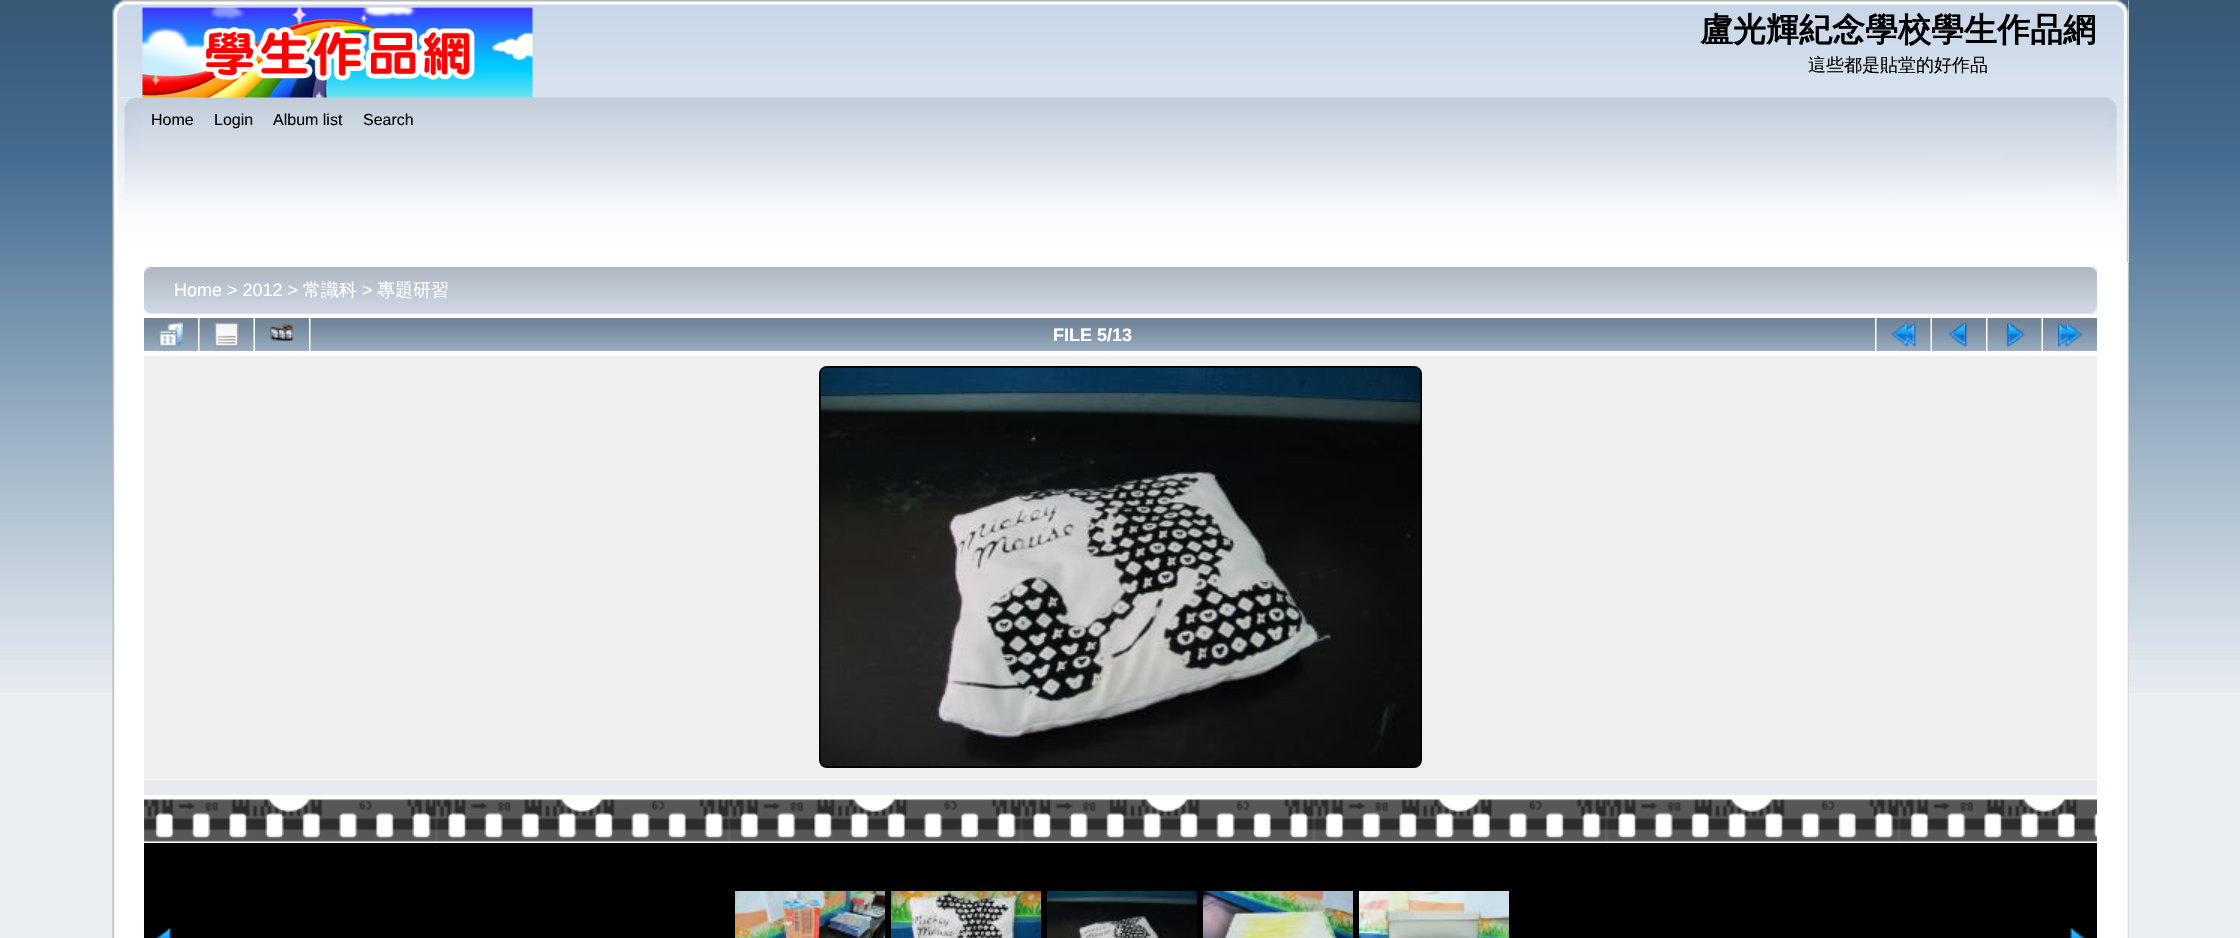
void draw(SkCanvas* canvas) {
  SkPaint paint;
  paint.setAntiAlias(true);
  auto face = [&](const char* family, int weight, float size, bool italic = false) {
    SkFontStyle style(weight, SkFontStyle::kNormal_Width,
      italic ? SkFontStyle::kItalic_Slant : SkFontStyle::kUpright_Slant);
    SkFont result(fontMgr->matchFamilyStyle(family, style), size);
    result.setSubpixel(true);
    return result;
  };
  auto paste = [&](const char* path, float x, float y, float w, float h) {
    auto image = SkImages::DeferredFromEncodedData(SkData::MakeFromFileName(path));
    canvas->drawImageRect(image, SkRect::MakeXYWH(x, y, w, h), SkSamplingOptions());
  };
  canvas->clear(0xffe9eef2);
  paste("img/1.png", 0, 0, 2240, 693);
  paint.setColor(0xfffefefe);
  canvas->drawRect(SkRect::MakeXYWH(113, 0, 2016, 263), paint);
  paste("img/2.png", 112, 0, 2017, 98);
  paste("img/3.png", 142, 0, 1987, 98);
  paste("img/5.png", 112, 97, 2017, 166);
  paste("img/6.png", 142, 97, 1987, 166);
  paste("img/4.png", 142, 7, 391, 91);
  paste("img/7.png", 112, 262, 2017, 676);
  paste("img/8.png", 2127, 262, 2, 676);
  paste("img/9.png", 144, 267, 1953, 47);
  paste("img/10.png", 174, 267, 1923, 47);
  paste("img/11.png", 144, 318, 54, 33);
  paste("img/12.png", 159, 322, 24, 25);
  paste("img/13.png", 199, 318, 55, 33);
  paste("img/14.png", 214, 322, 25, 25);
  paste("img/11.png", 255, 318, 54, 33);
  paste("img/15.png", 270, 323, 24, 19);
  paste("img/16.png", 310, 318, 1565, 33);
  paste("img/13.png", 1876, 318, 55, 33);
  paste("img/17.png", 1891, 322, 25, 25);
  paste("img/11.png", 1932, 318, 54, 33);
  paste("img/18.png", 1948, 322, 19, 25);
  paste("img/13.png", 1987, 318, 55, 33);
  paste("img/19.png", 2006, 322, 20, 25);
  paste("img/11.png", 2043, 318, 54, 33);
  paste("img/20.png", 2058, 322, 24, 25);
  paint.setColor(0xffefefef);
  canvas->drawRect(SkRect::MakeXYWH(144, 356, 1953, 423), paint);
  paint.setStroke(true);
  paint.setStrokeWidth(2);
  paint.setColor(0xff000000);
  canvas->drawRoundRect(SkRect::MakeXYWH(820, 367, 601, 400), 7, 7, paint);
  paste("img/21.png", 820, 367, 601, 400);
  paint.setStroke(false);
  paint.setColor(0xffe7eaef);
  canvas->drawRect(SkRect::MakeXYWH(144, 780, 1953, 15), paint);
  paste("img/22.png", 144, 799, 1953, 43);
  paint.setColor(0xff000000);
  canvas->drawRect(SkRect::MakeXYWH(144, 843, 1953, 95), paint);
  paste("img/23.png", 154, 928, 18, 10);
  paste("img/24.png", 735, 891, 150, 47);
  paste("img/25.png", 891, 891, 150, 47);
  paste("img/26.png", 1047, 891, 150, 47);
  paste("img/27.png", 1203, 891, 150, 47);
  paste("img/28.png", 1359, 891, 150, 47);
  paste("img/29.png", 2069, 928, 18, 10);
  auto f0 = face("WenQuanYi Zen Hei", 700, 33);
  canvas->drawString("盧光輝紀念學校學生作品網", 1700, 41, f0, paint);
  auto f1 = face("WenQuanYi Zen Hei", 500, 18);
  canvas->drawString("這些都是貼堂的好作品", 1808, 71, f1, paint);
  auto f2 = face("Liberation Sans", 400, 16);
  {
    const struct { const char* s; float x, y; } items[] = {
      {"Home", 151, 125},
      {"Login", 214, 125},
      {"Album list", 273, 125},
      {"Search", 363, 125},
    };
    for (auto [s, x, y] : items) {
      canvas->drawString(s, x, y, f2, paint);
    }
  }
  auto f3 = face("Liberation Sans", 400, 18);
  paint.setColor(0xffffffff);
  canvas->drawString("Home > 2012 >", 174, 296, f3, paint);
  canvas->drawString("常識科", 303, 296, f1, paint);
  canvas->drawString(">", 362, 296, f3, paint);
  canvas->drawString("專題研習", 377, 296, f1, paint);
  auto f4 = face("Liberation Sans", 700, 18);
  canvas->drawString("FILE 5/13", 1053, 341, f4, paint);
}
